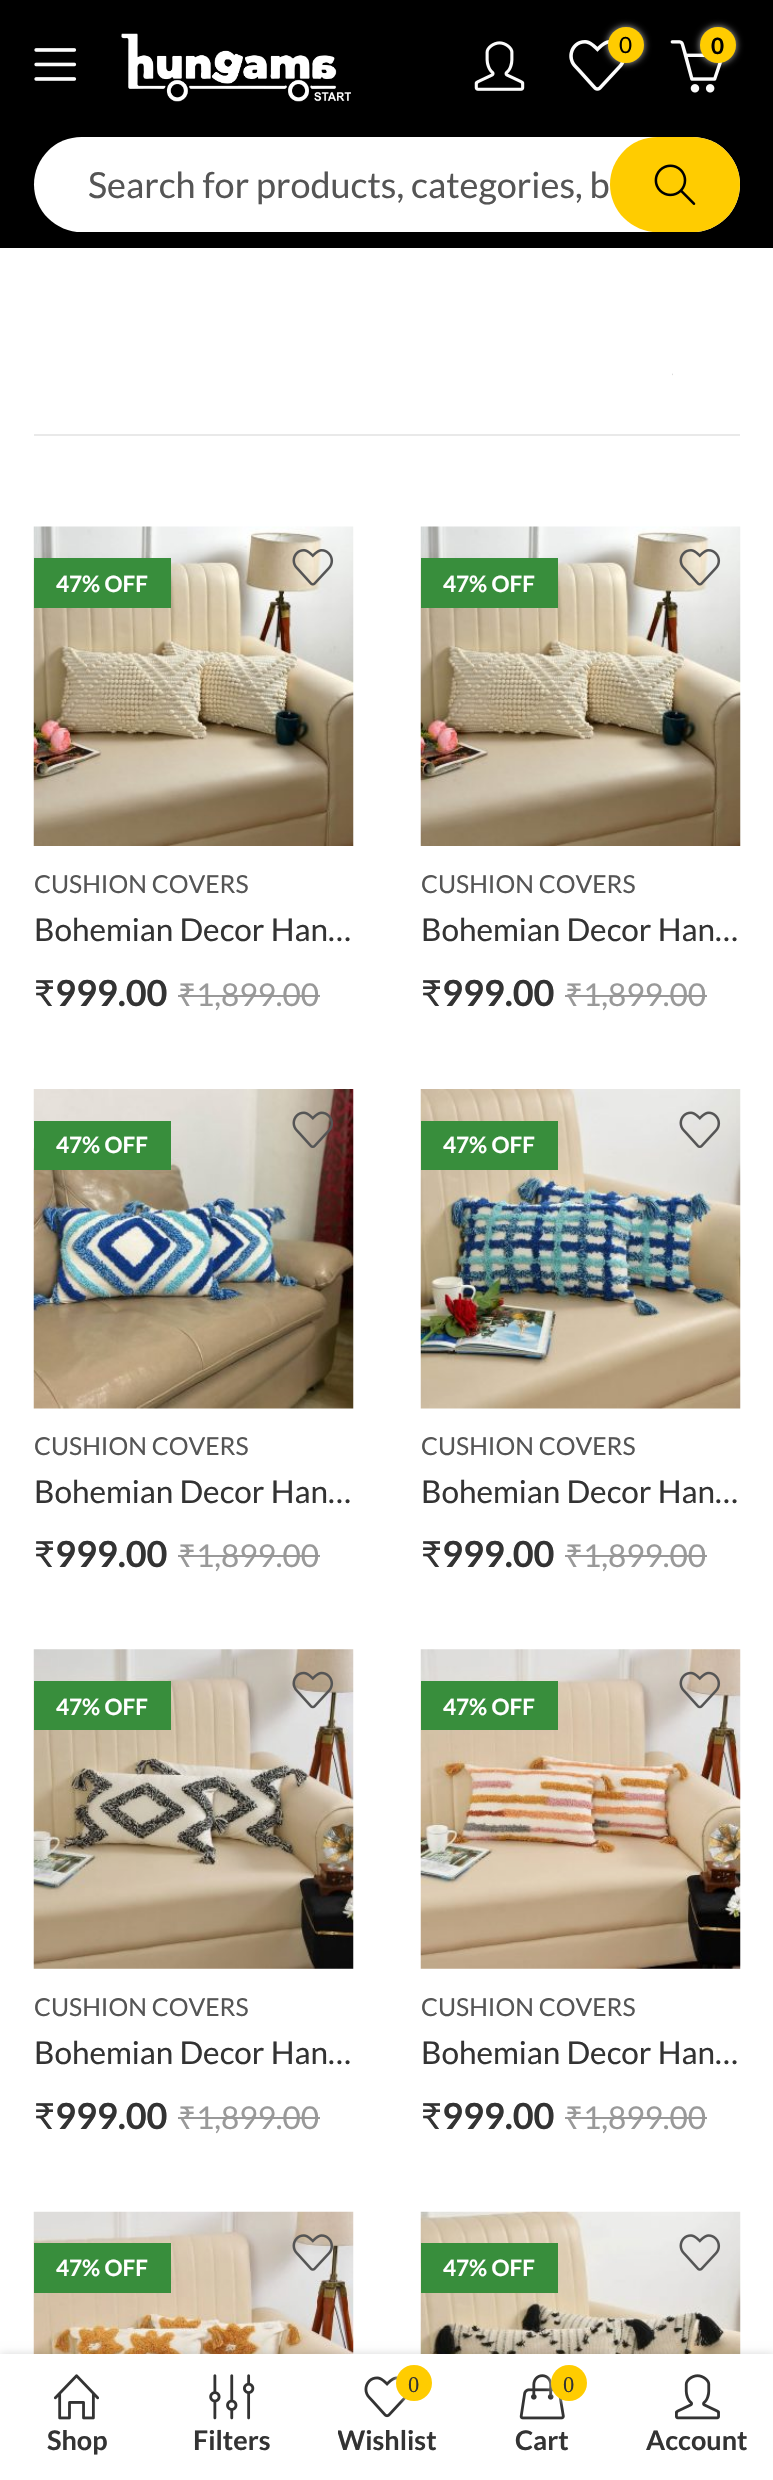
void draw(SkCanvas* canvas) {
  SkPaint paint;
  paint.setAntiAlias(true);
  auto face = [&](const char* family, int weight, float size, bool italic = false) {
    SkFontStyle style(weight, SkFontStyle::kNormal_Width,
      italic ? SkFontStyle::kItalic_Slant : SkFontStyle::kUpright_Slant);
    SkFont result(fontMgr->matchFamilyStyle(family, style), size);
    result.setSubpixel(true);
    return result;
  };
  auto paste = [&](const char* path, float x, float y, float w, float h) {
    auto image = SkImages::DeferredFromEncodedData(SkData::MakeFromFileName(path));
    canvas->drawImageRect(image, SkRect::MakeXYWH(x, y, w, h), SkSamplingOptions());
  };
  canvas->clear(0xffffffff);
  paint.setColor(0xff000000);
  canvas->drawRect(SkRect::MakeXYWH(0, 0, 773, 248), paint);
  paste("img/1.png", 34, 48, 43, 33);
  paste("img/2.png", 121, 33, 230, 69);
  paste("img/3.png", 474, 41, 51, 50);
  paste("img/4.png", 569, 40, 56, 51);
  paint.setColor(0xb3ffffff);
  paint.setMaskFilter(SkMaskFilter::MakeBlur(kNormal_SkBlurStyle, 3.5f));
  canvas->drawRoundRect(SkRect::MakeXYWH(608, 27, 36, 36), 18, 18, paint);
  paint.setMaskFilter(nullptr);
  paint.setColor(0xffffcc00);
  canvas->drawCircle(626, 45, 18, paint);
  paste("img/5.png", 670, 40, 53, 53);
  paint.setColor(0xb3ffffff);
  paint.setMaskFilter(SkMaskFilter::MakeBlur(kNormal_SkBlurStyle, 3.5f));
  canvas->drawRoundRect(SkRect::MakeXYWH(700, 27, 36, 36), 18, 18, paint);
  paint.setMaskFilter(nullptr);
  paint.setColor(0xffffcc00);
  canvas->drawCircle(718, 45, 18, paint);
  paint.setColor(0xffffffff);
  canvas->drawRoundRect(SkRect::MakeXYWH(34, 137, 706, 95), 47.5f, 47.5f, paint);
  paint.setColor(0xffffcc00);
  canvas->drawRoundRect(SkRect::MakeXYWH(610, 137, 130, 95), 47.5f, 47.5f, paint);
  paste("img/6.png", 654, 164, 42, 41);
  paint.setColor(0xffe9e9e9);
  canvas->drawRect(SkRect::MakeXYWH(34, 434, 706, 2), paint);
  paste("img/7.png", 672, 373, 1, 3);
  paste("img/8.png", 33, 526, 321, 320);
  paint.setColor(0xff388e3c);
  canvas->drawRect(SkRect::MakeXYWH(34, 558, 137, 50), paint);
  paste("img/9.png", 292, 549, 42, 37);
  paint.setColor(0xff999999);
  canvas->drawRect(SkRect::MakeXYWH(178, 995, 18, 2), paint);
  canvas->drawRect(SkRect::MakeXYWH(196, 995, 124, 2), paint);
  paste("img/8.png", 420, 526, 321, 320);
  paint.setColor(0xff388e3c);
  canvas->drawRect(SkRect::MakeXYWH(421, 558, 137, 50), paint);
  paste("img/9.png", 679, 549, 42, 37);
  paint.setColor(0xff999999);
  canvas->drawRect(SkRect::MakeXYWH(565, 995, 18, 2), paint);
  canvas->drawRect(SkRect::MakeXYWH(583, 995, 124, 2), paint);
  paste("img/10.png", 33, 1089, 321, 320);
  paint.setColor(0xff388e3c);
  canvas->drawRect(SkRect::MakeXYWH(34, 1121, 137, 49), paint);
  paste("img/11.png", 292, 1111, 41, 37);
  paint.setColor(0xff999999);
  canvas->drawRect(SkRect::MakeXYWH(178, 1555, 18, 2), paint);
  canvas->drawRect(SkRect::MakeXYWH(196, 1555, 124, 2), paint);
  paste("img/12.png", 420, 1089, 321, 320);
  paint.setColor(0xff388e3c);
  canvas->drawRect(SkRect::MakeXYWH(421, 1121, 137, 49), paint);
  paste("img/13.png", 679, 1111, 42, 37);
  paint.setColor(0xff999999);
  canvas->drawRect(SkRect::MakeXYWH(565, 1555, 18, 2), paint);
  canvas->drawRect(SkRect::MakeXYWH(583, 1555, 124, 2), paint);
  paste("img/14.png", 33, 1649, 321, 320);
  paint.setColor(0xff388e3c);
  canvas->drawRect(SkRect::MakeXYWH(34, 1681, 137, 49), paint);
  paste("img/15.png", 292, 1671, 42, 38);
  paint.setColor(0xff999999);
  canvas->drawRect(SkRect::MakeXYWH(178, 2117, 18, 2), paint);
  canvas->drawRect(SkRect::MakeXYWH(196, 2117, 124, 2), paint);
  paste("img/16.png", 420, 1649, 321, 320);
  paint.setColor(0xff388e3c);
  canvas->drawRect(SkRect::MakeXYWH(421, 1681, 137, 49), paint);
  paste("img/17.png", 679, 1671, 42, 38);
  paint.setColor(0xff999999);
  canvas->drawRect(SkRect::MakeXYWH(565, 2117, 18, 2), paint);
  canvas->drawRect(SkRect::MakeXYWH(583, 2117, 124, 2), paint);
  paste("img/18.png", 33, 2211, 321, 143);
  paint.setColor(0xff388e3c);
  canvas->drawRect(SkRect::MakeXYWH(34, 2243, 137, 50), paint);
  paste("img/19.png", 292, 2234, 41, 37);
  paste("img/20.png", 420, 2211, 321, 143);
  canvas->drawRect(SkRect::MakeXYWH(421, 2243, 137, 50), paint);
  paste("img/21.png", 679, 2234, 42, 37);
  paint.setColor(0x26000000);
  paint.setMaskFilter(SkMaskFilter::MakeBlur(kNormal_SkBlurStyle, 4.5f));
  canvas->drawRect(SkRect::MakeXYWH(0, 2354, 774, 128), paint);
  paint.setMaskFilter(nullptr);
  paint.setColor(0xffffffff);
  canvas->drawRect(SkRect::MakeXYWH(0, 2354, 773, 126), paint);
  paste("img/22.png", 53, 2374, 46, 46);
  paste("img/23.png", 209, 2374, 46, 46);
  paste("img/24.png", 364, 2376, 42, 42);
  paint.setColor(0xb3ffffff);
  paint.setMaskFilter(SkMaskFilter::MakeBlur(kNormal_SkBlurStyle, 3.5f));
  canvas->drawRoundRect(SkRect::MakeXYWH(396, 2365, 36, 36), 18, 18, paint);
  paint.setMaskFilter(nullptr);
  paint.setColor(0xffffcc00);
  canvas->drawCircle(414, 2383, 18, paint);
  paste("img/25.png", 519, 2374, 46, 46);
  paint.setColor(0xb3ffffff);
  paint.setMaskFilter(SkMaskFilter::MakeBlur(kNormal_SkBlurStyle, 3.5f));
  canvas->drawRoundRect(SkRect::MakeXYWH(551, 2365, 36, 36), 18, 18, paint);
  paint.setMaskFilter(nullptr);
  paint.setColor(0xffffcc00);
  canvas->drawCircle(569, 2383, 18, paint);
  paste("img/26.png", 675, 2374, 45, 46);
  auto f0 = face("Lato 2", 400, 22.5f);
  paint.setColor(0xff000000);
  canvas->drawString("0", 619, 53, f0, paint);
  auto f1 = face("Lato", 700, 22.5f);
  canvas->drawString("0", 711, 54, f1, paint);
  auto f2 = face("Lato 2", 400, 36);
  paint.setColor(0xff555555);
  canvas->drawString("Search for products, categories, b", 88, 198, f2, paint);
  paint.setColor(0xffffffff);
  canvas->drawString("47% OFF", 56, 592, f1, paint);
  auto f3 = face("Lato 2", 400, 24.75f);
  paint.setColor(0xff555555);
  canvas->drawString("CUSHION COVERS", 34, 893, f3, paint);
  auto f4 = face("Lato 2", 400, 31.5f);
  paint.setColor(0xff333333);
  canvas->drawString("Bohemian Decor Han…", 34, 941, f4, paint);
  auto f5 = face("Lato", 400, 36);
  canvas->drawString("₹", 34, 1006, f5, paint);
  auto f6 = face("Lato", 700, 36);
  canvas->drawString("999.00", 55, 1006, f6, paint);
  auto f7 = face("Noto Sans", 400, 31.5f);
  paint.setColor(0xff999999);
  canvas->drawString("₹", 178, 1006, f7, paint);
  canvas->drawString("1,899.00", 196, 1006, f4, paint);
  paint.setColor(0xffffffff);
  canvas->drawString("47% OFF", 443, 592, f1, paint);
  paint.setColor(0xff555555);
  canvas->drawString("CUSHION COVERS", 421, 893, f3, paint);
  paint.setColor(0xff333333);
  canvas->drawString("Bohemian Decor Han…", 421, 941, f4, paint);
  canvas->drawString("₹", 421, 1006, f5, paint);
  canvas->drawString("999.00", 442, 1006, f6, paint);
  paint.setColor(0xff999999);
  canvas->drawString("₹", 565, 1006, f7, paint);
  canvas->drawString("1,899.00", 583, 1006, f4, paint);
  paint.setColor(0xffffffff);
  canvas->drawString("47% OFF", 56, 1153, f1, paint);
  paint.setColor(0xff555555);
  canvas->drawString("CUSHION COVERS", 34, 1455, f3, paint);
  paint.setColor(0xff333333);
  canvas->drawString("Bohemian Decor Han…", 34, 1503, f4, paint);
  canvas->drawString("₹", 34, 1567, f5, paint);
  canvas->drawString("999.00", 55, 1567, f6, paint);
  paint.setColor(0xff999999);
  canvas->drawString("₹", 178, 1567, f7, paint);
  canvas->drawString("1,899.00", 196, 1567, f4, paint);
  paint.setColor(0xffffffff);
  canvas->drawString("47% OFF", 443, 1153, f1, paint);
  paint.setColor(0xff555555);
  canvas->drawString("CUSHION COVERS", 421, 1455, f3, paint);
  paint.setColor(0xff333333);
  canvas->drawString("Bohemian Decor Han…", 421, 1503, f4, paint);
  canvas->drawString("₹", 421, 1567, f5, paint);
  canvas->drawString("999.00", 442, 1567, f6, paint);
  paint.setColor(0xff999999);
  canvas->drawString("₹", 565, 1567, f7, paint);
  canvas->drawString("1,899.00", 583, 1567, f4, paint);
  paint.setColor(0xffffffff);
  canvas->drawString("47% OFF", 56, 1715, f1, paint);
  paint.setColor(0xff555555);
  canvas->drawString("CUSHION COVERS", 34, 2016, f3, paint);
  paint.setColor(0xff333333);
  canvas->drawString("Bohemian Decor Han…", 34, 2064, f4, paint);
  canvas->drawString("₹", 34, 2129, f5, paint);
  canvas->drawString("999.00", 55, 2129, f6, paint);
  paint.setColor(0xff999999);
  canvas->drawString("₹", 178, 2129, f7, paint);
  canvas->drawString("1,899.00", 196, 2129, f4, paint);
  paint.setColor(0xffffffff);
  canvas->drawString("47% OFF", 443, 1715, f1, paint);
  paint.setColor(0xff555555);
  canvas->drawString("CUSHION COVERS", 421, 2016, f3, paint);
  paint.setColor(0xff333333);
  canvas->drawString("Bohemian Decor Han…", 421, 2064, f4, paint);
  canvas->drawString("₹", 421, 2129, f5, paint);
  canvas->drawString("999.00", 442, 2129, f6, paint);
  paint.setColor(0xff999999);
  canvas->drawString("₹", 565, 2129, f7, paint);
  canvas->drawString("1,899.00", 583, 2129, f4, paint);
  paint.setColor(0xffffffff);
  canvas->drawString("47% OFF", 56, 2276, f1, paint);
  canvas->drawString("47% OFF", 443, 2276, f1, paint);
  auto f8 = face("Lato", 700, 27);
  paint.setColor(0xff333333);
  canvas->drawString("Shop", 47, 2450, f8, paint);
  canvas->drawString("Filters", 193, 2450, f8, paint);
  auto f9 = face("Liberation Serif", 400, 22.5f);
  canvas->drawString("0", 408, 2392, f9, paint);
  canvas->save();
  canvas->clipRect(SkRect::MakeXYWH(338, 2419, 99, 43));
  canvas->drawString("Wishlist", 337, 2450, f8, paint);
  canvas->restore();
  canvas->drawString("0", 563, 2392, f9, paint);
  canvas->drawString("Cart", 515, 2450, f8, paint);
  canvas->drawString("Account", 646, 2450, f8, paint);
}
